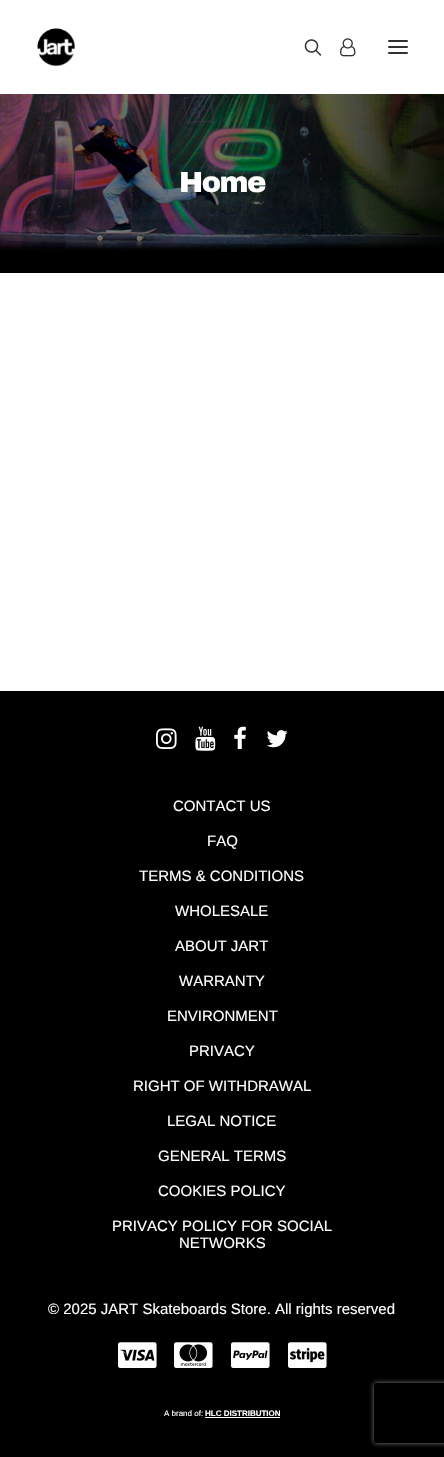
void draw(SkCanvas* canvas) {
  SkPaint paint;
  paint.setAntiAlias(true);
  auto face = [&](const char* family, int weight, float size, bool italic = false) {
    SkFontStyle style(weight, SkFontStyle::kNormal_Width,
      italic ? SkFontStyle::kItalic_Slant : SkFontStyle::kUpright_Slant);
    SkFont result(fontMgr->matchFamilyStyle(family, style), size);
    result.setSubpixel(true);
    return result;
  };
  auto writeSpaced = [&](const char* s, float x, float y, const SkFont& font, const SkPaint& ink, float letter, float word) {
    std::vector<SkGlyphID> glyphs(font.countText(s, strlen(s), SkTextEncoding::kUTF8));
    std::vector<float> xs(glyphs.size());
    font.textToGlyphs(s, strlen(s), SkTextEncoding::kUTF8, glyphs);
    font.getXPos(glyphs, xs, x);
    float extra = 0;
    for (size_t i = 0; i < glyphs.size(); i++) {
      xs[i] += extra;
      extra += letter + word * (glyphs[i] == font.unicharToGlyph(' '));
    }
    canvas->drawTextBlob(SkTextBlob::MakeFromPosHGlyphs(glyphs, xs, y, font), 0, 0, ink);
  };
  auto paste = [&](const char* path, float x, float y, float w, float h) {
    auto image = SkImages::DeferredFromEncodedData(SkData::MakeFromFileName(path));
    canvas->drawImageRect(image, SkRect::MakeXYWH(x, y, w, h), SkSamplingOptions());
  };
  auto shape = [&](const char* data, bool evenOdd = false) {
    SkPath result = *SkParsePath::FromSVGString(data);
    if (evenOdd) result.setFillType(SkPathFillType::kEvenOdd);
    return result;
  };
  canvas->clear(0xffffffff);
  paste("img/1.png", 37, 28, 39, 39);
  paste("img/2.png", 304, 39, 18, 17);
  paste("img/3.png", 340, 38, 16, 19);
  paint.setColor(0xff303133);
  canvas->drawRoundRect(SkRect::MakeXYWH(388, 46, 20, 2), 1, 1, paint);
  canvas->drawRoundRect(SkRect::MakeXYWH(388, 40, 20, 2), 1, 1, paint);
  canvas->drawRoundRect(SkRect::MakeXYWH(388, 52, 20, 2), 1, 1, paint);
  paste("img/4.png", 0, 94, 444, 179);
  paint.setColor(0xff000000);
  canvas->drawRect(SkRect::MakeXYWH(0, 691, 444, 766), paint);
  paste("img/5.png", 156, 728, 21, 21);
  paste("img/6.png", 195, 726, 21, 25);
  paste("img/7.png", 234, 726, 12, 23);
  paste("img/8.png", 266, 730, 22, 18);
  paste("img/9.png", 118, 1342, 39, 26);
  paste("img/10.png", 174, 1342, 39, 26);
  paste("img/11.png", 231, 1342, 39, 26);
  paste("img/12.png", 288, 1342, 39, 26);
  paint.setColor(0xffffffff);
  canvas->drawRect(SkRect::MakeXYWH(205, 1417, 75, 1), paint);
  canvas->save();
  canvas->clipPath(shape("M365 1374H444V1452H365ZM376 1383H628C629 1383 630 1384 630 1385V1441C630 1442 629 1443 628 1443H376C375 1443 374 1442 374 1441V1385C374 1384 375 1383 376 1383Z", true), true);
  paint.setColor(0xff808080);
  paint.setMaskFilter(SkMaskFilter::MakeBlur(kNormal_SkBlurStyle, 2.5f));
  canvas->drawRoundRect(SkRect::MakeXYWH(374, 1383, 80, 60), 2, 2, paint);
  paint.setMaskFilter(nullptr);
  canvas->restore();
  auto f0 = face("Archivo Black", 900, 29);
  paint.setColor(0xffffffff);
  writeSpaced("Home", 179, 192, f0, paint, -1.5f, 0);
  auto f1 = face("Liberation Sans", 400, 15);
  {
    const struct { const char* s; float x, y; } items[] = {
      {"CONTACT US", 173, 811},
      {"FAQ", 207, 846},
      {"TERMS & CONDITIONS", 139, 881},
      {"WHOLESALE", 175, 916},
      {"ABOUT JART", 175, 951},
      {"WARRANTY", 179, 986},
      {"ENVIRONMENT", 167, 1021},
      {"PRIVACY", 189, 1056},
      {"RIGHT OF WITHDRAWAL", 133, 1091},
      {"LEGAL NOTICE", 167, 1126},
      {"GENERAL TERMS", 158, 1161},
      {"COOKIES POLICY", 158, 1196},
      {"PRIVACY POLICY FOR SOCIAL", 112, 1231},
      {"NETWORKS", 179, 1248},
      {"© 2025 JART Skateboards Store. All rights reserved", 48, 1314},
    };
    for (auto [s, x, y] : items) {
      canvas->drawString(s, x, y, f1, paint);
    }
  }
  auto f2 = face("Liberation Sans", 400, 8);
  canvas->drawString("A brand of:", 164, 1416, f2, paint);
  auto f3 = face("Liberation Sans", 700, 8);
  canvas->drawString("HLC DISTRIBUTION", 205, 1416, f3, paint);
}
